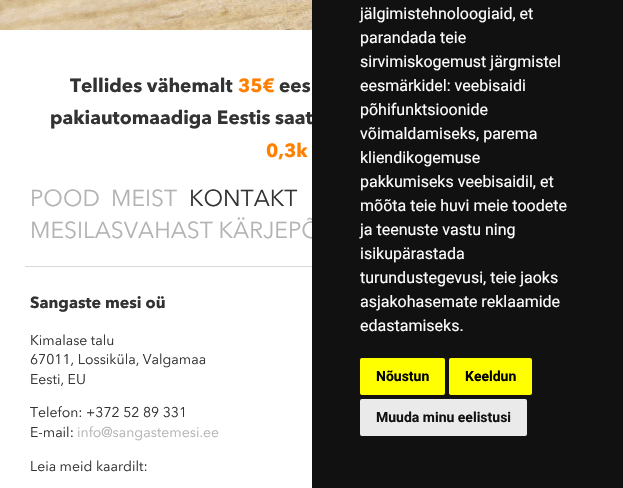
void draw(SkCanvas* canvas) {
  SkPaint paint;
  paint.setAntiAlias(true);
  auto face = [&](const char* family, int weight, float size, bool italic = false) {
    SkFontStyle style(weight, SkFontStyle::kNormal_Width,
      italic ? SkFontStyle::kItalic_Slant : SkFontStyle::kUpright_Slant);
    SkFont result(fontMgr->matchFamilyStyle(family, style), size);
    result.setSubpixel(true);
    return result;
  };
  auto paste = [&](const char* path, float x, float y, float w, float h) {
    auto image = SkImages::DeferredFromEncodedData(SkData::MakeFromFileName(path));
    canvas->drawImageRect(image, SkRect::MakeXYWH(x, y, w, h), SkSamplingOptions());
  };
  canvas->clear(0xffffffff);
  paste("img/1.png", 0, 0, 312, 30);
  paint.setColor(0xffd8d8d8);
  canvas->drawRect(SkRect::MakeXYWH(25, 266, 287, 1), paint);
  auto f0 = face("Avenir Next", 700, 19);
  paint.setColor(0xff333333);
  canvas->drawString("Tellides vähemalt", 70, 92, f0, paint);
  paint.setColor(0xffff8000);
  canvas->drawString("35€", 238, 92, f0, paint);
  paint.setColor(0xff333333);
  canvas->drawString("ees", 279, 92, f0, paint);
  canvas->drawString("pakiautomaadiga Eestis saat", 50, 124, f0, paint);
  paint.setColor(0xffff8000);
  canvas->drawString("0,3k", 266, 157, f0, paint);
  auto f1 = face("Avenir Next", 400, 23);
  paint.setColor(0xffb3b3b3);
  canvas->drawString("POOD", 30, 206, f1, paint);
  canvas->drawString("MEIST", 111, 206, f1, paint);
  paint.setColor(0xff333333);
  canvas->drawString("KONTAKT", 189, 206, f1, paint);
  paint.setColor(0xffb3b3b3);
  canvas->drawString("MESILASVAHAST KÄRJEPÕ", 30, 238, f1, paint);
  paint.setColor(0xff111111);
  canvas->drawRect(SkRect::MakeXYWH(312, 0, 311, 488), paint);
  paint.setColor(0xffeaeaea);
  canvas->drawRoundRect(SkRect::MakeXYWH(360, 399, 167, 37), 2, 2, paint);
  auto f2 = face("Roboto", 700, 14);
  paint.setColor(0xff111111);
  canvas->drawString("Muuda minu eelistusi", 376, 422, f2, paint);
  paint.setColor(0xffffff00);
  canvas->drawRoundRect(SkRect::MakeXYWH(449, 358, 83, 37), 2, 2, paint);
  paint.setColor(0xff000000);
  canvas->drawString("Keeldun", 465, 381, f2, paint);
  paint.setColor(0xffffff00);
  canvas->drawRoundRect(SkRect::MakeXYWH(360, 358, 85, 37), 2, 2, paint);
  paint.setColor(0xff000000);
  canvas->drawString("Nõustun", 376, 381, f2, paint);
  auto f3 = face("Roboto", 400, 16);
  paint.setColor(0xffffffff);
  {
    const struct { const char* s; float x, y; } items[] = {
      {"edastamiseks.", 360, 331},
      {"asjakohasemate reklaamide", 360, 307},
      {"turundustegevusi, teie jaoks", 360, 283},
      {"isikupärastada", 360, 259},
      {"ja teenuste vastu ning", 360, 235},
      {"mõõta teie huvi meie toodete", 360, 211},
      {"pakkumiseks veebisaidil, et", 360, 187},
      {"kliendikogemuse", 360, 163},
      {"võimaldamiseks, parema", 360, 139},
      {"põhifunktsioonide", 360, 115},
      {"eesmärkidel: veebisaidi", 360, 91},
      {"sirvimiskogemust järgmistel", 360, 67},
      {"parandada teie", 360, 43},
      {"jälgimistehnoloogiaid, et", 360, 19},
    };
    for (auto [s, x, y] : items) {
      canvas->drawString(s, x, y, f3, paint);
    }
  }
  auto f4 = face("Avenir Next", 700, 16);
  paint.setColor(0xff333333);
  canvas->drawString("Sangaste mesi oü", 30, 308, f4, paint);
  auto f5 = face("Avenir Next", 400, 14);
  {
    const struct { const char* s; float x, y; } items[] = {
      {"Kimalase talu", 30, 345},
      {"67011, Lossiküla, Valgamaa", 30, 364},
      {"Eesti, EU", 30, 384},
      {"Telefon: +372 52 89 331", 30, 417},
      {"E-mail:", 30, 437},
    };
    for (auto [s, x, y] : items) {
      canvas->drawString(s, x, y, f5, paint);
    }
  }
  paint.setColor(0xffb3b3b3);
  canvas->drawString("info@sangastemesi.ee", 77, 437, f5, paint);
  paint.setColor(0xff333333);
  canvas->drawString("Leia meid kaardilt:", 30, 471, f5, paint);
}
